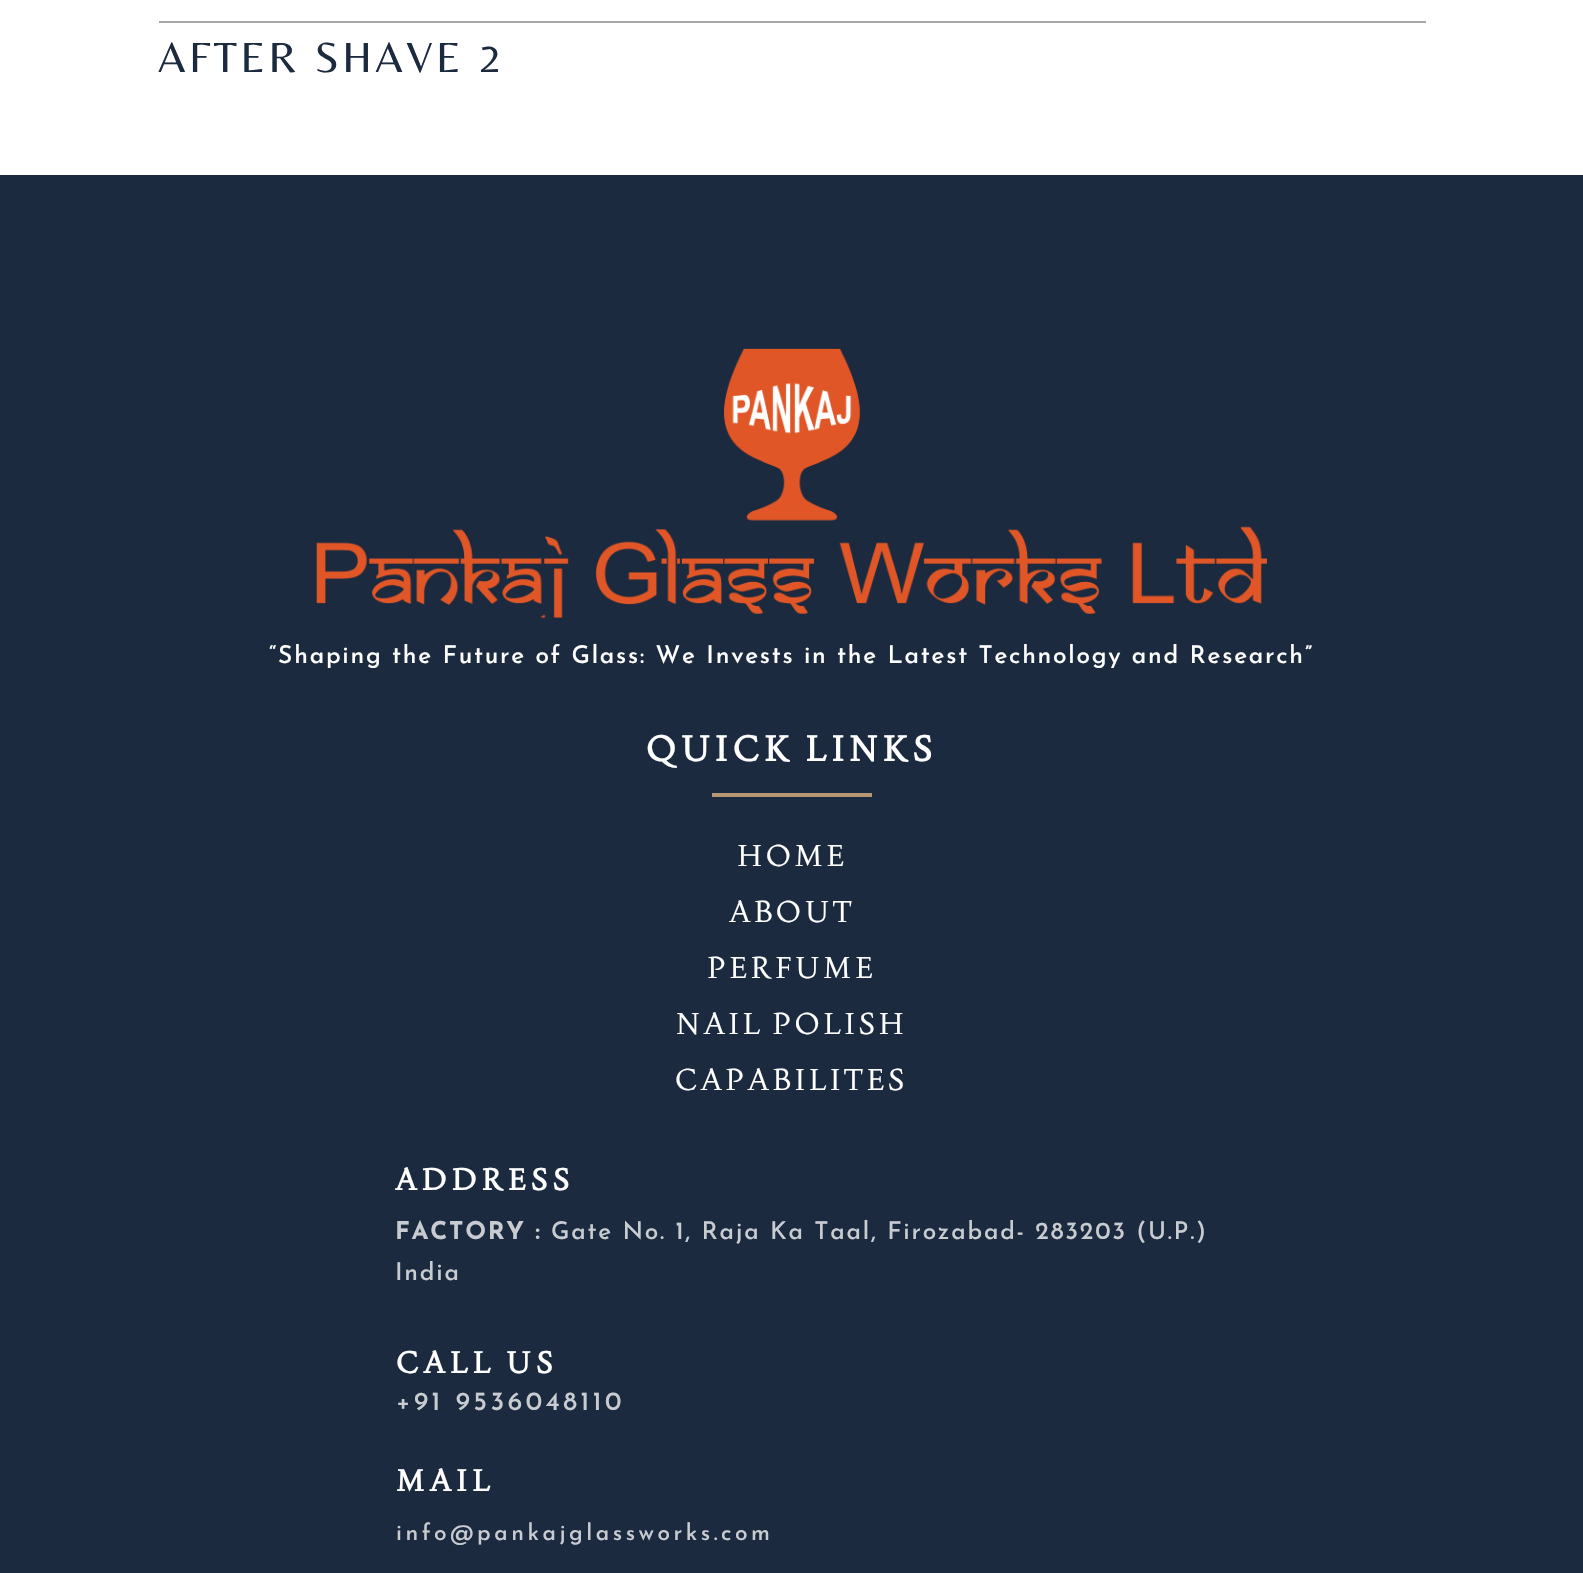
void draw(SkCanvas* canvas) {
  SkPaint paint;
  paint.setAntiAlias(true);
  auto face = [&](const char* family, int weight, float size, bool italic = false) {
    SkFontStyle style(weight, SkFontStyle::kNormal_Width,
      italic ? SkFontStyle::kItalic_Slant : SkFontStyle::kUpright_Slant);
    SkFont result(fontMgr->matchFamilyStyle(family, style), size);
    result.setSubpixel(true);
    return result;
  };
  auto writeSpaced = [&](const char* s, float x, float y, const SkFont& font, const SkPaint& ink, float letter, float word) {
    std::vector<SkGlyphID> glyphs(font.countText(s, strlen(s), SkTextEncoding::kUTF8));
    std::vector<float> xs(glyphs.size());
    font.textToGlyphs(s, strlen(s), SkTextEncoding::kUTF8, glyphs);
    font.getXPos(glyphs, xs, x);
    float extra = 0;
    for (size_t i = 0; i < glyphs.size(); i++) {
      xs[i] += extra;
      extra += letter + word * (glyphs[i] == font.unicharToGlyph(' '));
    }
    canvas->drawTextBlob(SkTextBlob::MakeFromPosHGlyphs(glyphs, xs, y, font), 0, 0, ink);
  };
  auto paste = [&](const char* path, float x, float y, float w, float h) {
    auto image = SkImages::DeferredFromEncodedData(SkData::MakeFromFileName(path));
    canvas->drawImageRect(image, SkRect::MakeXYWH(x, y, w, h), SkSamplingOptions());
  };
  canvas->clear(0xffffffff);
  paint.setColor(0xffa6a6a6);
  canvas->drawRect(SkRect::MakeXYWH(159, 21, 1267, 2), paint);
  paint.setColor(0xff1b2a3e);
  canvas->drawRect(SkRect::MakeXYWH(0, 175, 1583, 1398), paint);
  paste("img/1.png", 316, 348, 951, 270);
  paint.setColor(0xffb69773);
  canvas->drawRect(SkRect::MakeXYWH(712, 793, 160, 4), paint);
  auto f0 = face("Belleza", 400, 43.75f);
  paint.setColor(0xff1b2a3e);
  writeSpaced("AFTER SHAVE 2", 158, 72, f0, paint, 3.5f, 0);
  auto f1 = face("Josefin Sans", 500, 24.5f);
  paint.setColor(0xffffffff);
  writeSpaced("“Shaping the Future of Glass: We Invests in the Latest Technology and Research”", 269, 663, f1, paint, 1.75f, 0);
  auto f2 = face("Joan", 700, 35);
  writeSpaced("QUICK LINKS", 646, 761, f2, paint, 5.25f, 0);
  auto f3 = face("Joan", 400, 29.75f);
  {
    const struct { const char* s; float x, y; } items[] = {
      {"HOME", 737, 866},
      {"ABOUT", 729, 922},
      {"PERFUME", 707, 978},
      {"NAIL POLISH", 676, 1034},
      {"CAPABILITES", 675, 1090},
    };
    for (auto [s, x, y] : items) {
      writeSpaced(s, x, y, f3, paint, 3.5f, 0);
    }
  }
  auto f4 = face("Joan", 700, 29.75f);
  writeSpaced("ADDRESS", 395, 1190, f4, paint, 5.25f, 0);
  auto f5 = face("Josefin Sans", 700, 24.5f);
  paint.setColor(0xffc8ccd1);
  writeSpaced("FACTORY :", 395, 1239, f5, paint, 1.75f, 0);
  writeSpaced("Gate No. 1, Raja Ka Taal, Firozabad- 283203 (U.P.)", 551, 1239, f1, paint, 1.75f, 0);
  writeSpaced("India", 395, 1280, f1, paint, 1.75f, 0);
  paint.setColor(0xffffffff);
  writeSpaced("CALL US", 396, 1373, f4, paint, 5.25f, 0);
  auto f6 = face("Josefin Sans", 500, 26.25f);
  paint.setColor(0xffc8ccd1);
  writeSpaced("+91 9536048110", 396, 1410, f6, paint, 3.5f, 0);
  paint.setColor(0xffffffff);
  writeSpaced("MAIL", 396, 1491, f4, paint, 5.25f, 0);
  auto f7 = face("Josefin Sans", 500, 22.75f);
  paint.setColor(0xffc8ccd1);
  writeSpaced("info@pankajglassworks.com", 396, 1540, f7, paint, 3.5f, 0);
}
